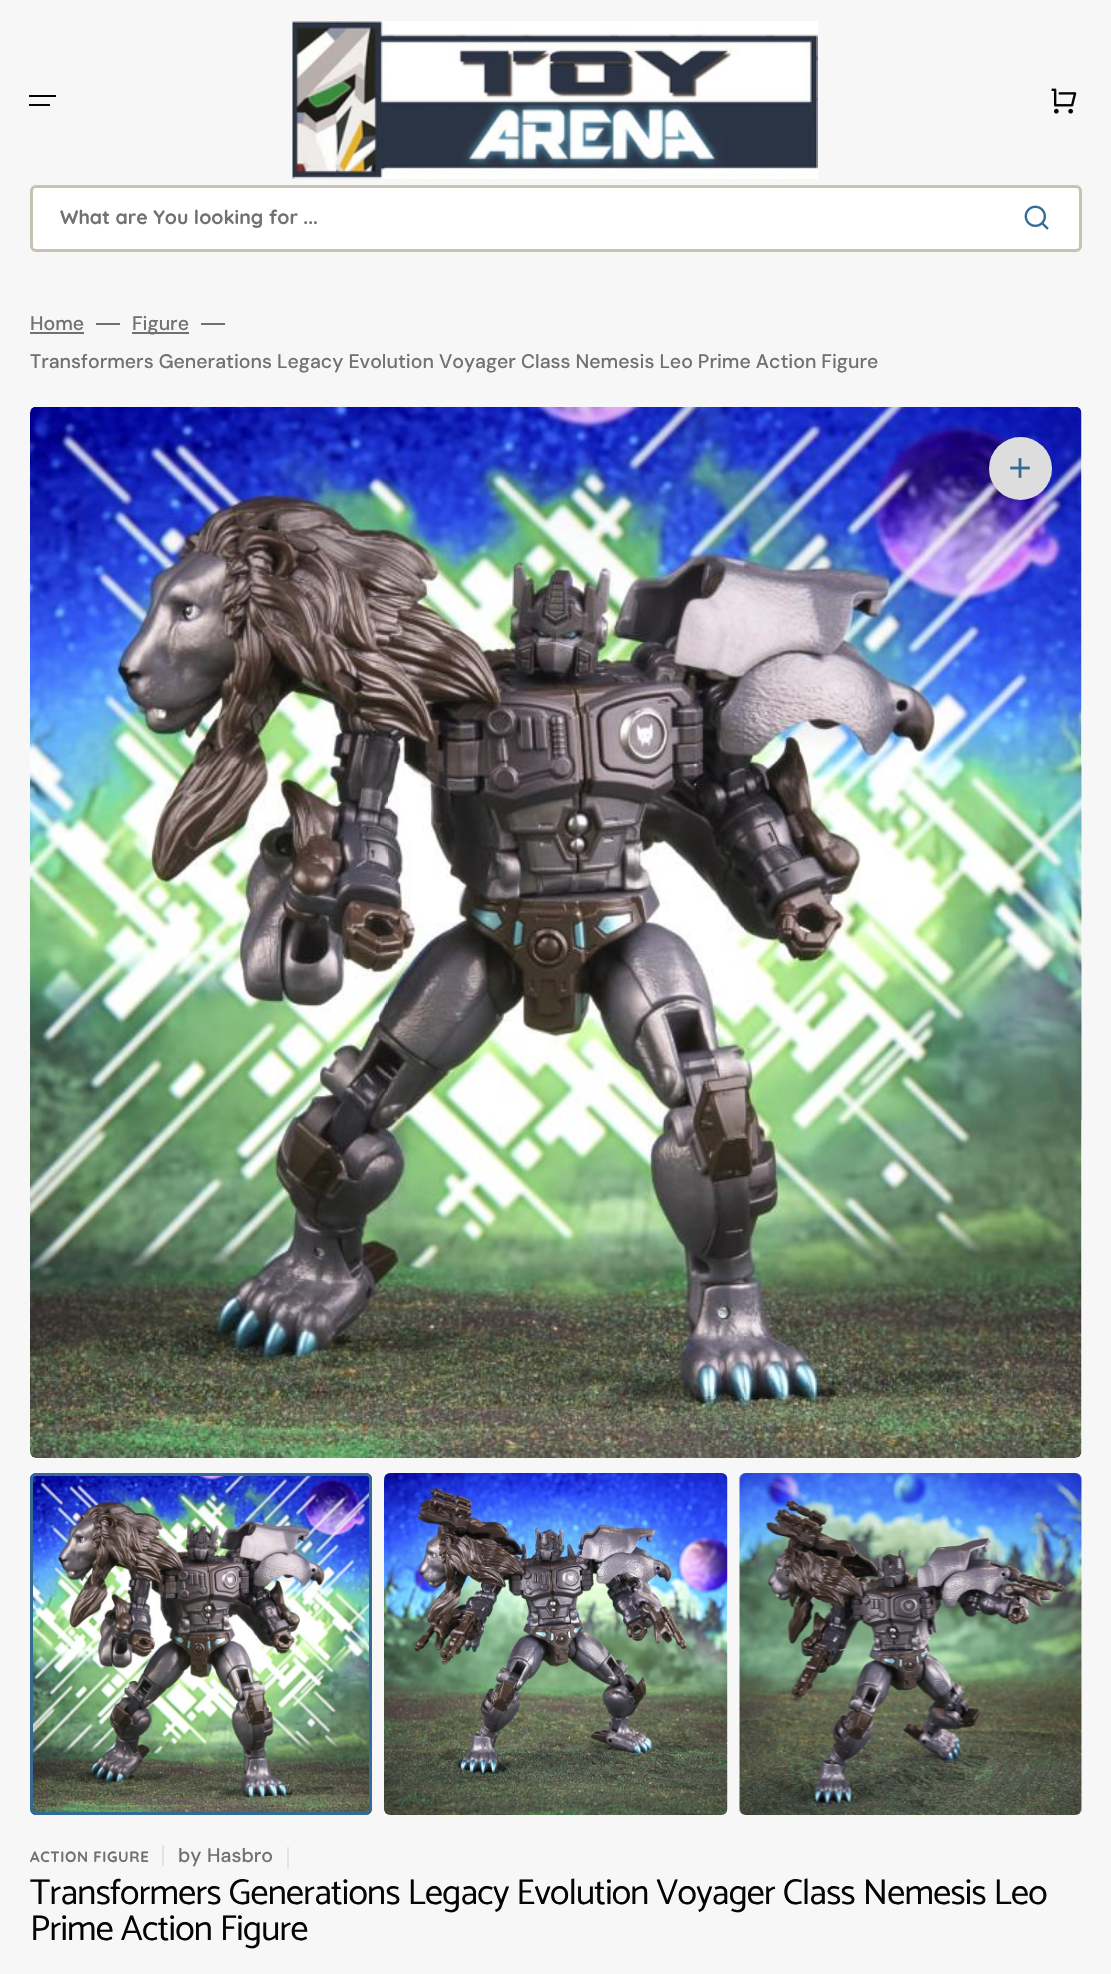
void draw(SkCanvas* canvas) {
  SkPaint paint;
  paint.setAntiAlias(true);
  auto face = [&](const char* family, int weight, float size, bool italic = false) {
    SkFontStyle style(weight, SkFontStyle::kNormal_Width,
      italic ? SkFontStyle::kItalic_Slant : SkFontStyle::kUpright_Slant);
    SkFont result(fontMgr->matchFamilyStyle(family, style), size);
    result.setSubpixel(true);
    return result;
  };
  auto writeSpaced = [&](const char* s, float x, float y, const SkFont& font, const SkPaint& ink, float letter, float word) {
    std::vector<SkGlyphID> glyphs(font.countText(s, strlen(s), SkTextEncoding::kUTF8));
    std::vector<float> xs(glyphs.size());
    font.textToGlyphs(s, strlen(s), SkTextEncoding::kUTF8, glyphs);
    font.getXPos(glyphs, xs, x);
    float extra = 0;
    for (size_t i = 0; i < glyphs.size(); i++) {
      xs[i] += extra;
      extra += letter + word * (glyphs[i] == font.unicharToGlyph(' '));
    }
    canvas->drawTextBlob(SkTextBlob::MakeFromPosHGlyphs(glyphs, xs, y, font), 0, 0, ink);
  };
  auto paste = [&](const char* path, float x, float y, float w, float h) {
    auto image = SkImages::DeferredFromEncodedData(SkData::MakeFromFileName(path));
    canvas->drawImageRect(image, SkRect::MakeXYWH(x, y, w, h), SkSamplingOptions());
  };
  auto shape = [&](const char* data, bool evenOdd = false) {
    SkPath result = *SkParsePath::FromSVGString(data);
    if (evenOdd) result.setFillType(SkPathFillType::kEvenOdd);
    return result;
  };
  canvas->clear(0xfff7f7f7);
  paint.setColor(0xff040404);
  canvas->drawRect(SkRect::MakeXYWH(29, 95, 27, 2), paint);
  canvas->drawRect(SkRect::MakeXYWH(29, 104, 21, 2), paint);
  paste("img/1.png", 292, 21, 526, 158);
  paste("img/2.png", 1051, 88, 26, 26);
  paint.setColor(0xffffffff);
  canvas->drawRoundRect(SkRect::MakeXYWH(31.5f, 186.5f, 1049, 64), 4.5f, 4.5f, paint);
  paint.setStroke(true);
  paint.setStrokeWidth(3);
  paint.setColor(0xffc7c2b1);
  canvas->drawRoundRect(SkRect::MakeXYWH(31.5f, 186.5f, 1049, 64), 4.5f, 4.5f, paint);
  paste("img/3.png", 1024, 205, 25, 25);
  paint.setStroke(false);
  {
    const struct { float x, y, w, h; SkColor color; } items[] = {
      {30, 332, 54, 2, 0xff717171},
      {96, 323, 24, 2, 0xff717171},
      {132, 332, 57, 2, 0xff717171},
      {201, 323, 24, 2, 0xff717171},
    };
    for (auto [x, y, w, h, color] : items) {
      paint.setColor(color);
      canvas->drawRect(SkRect::MakeXYWH(x, y, w, h), paint);
    }
  }
  paint.setColor(0xffffffff);
  canvas->drawRoundRect(SkRect::MakeXYWH(30, 407, 1052, 1051), 6, 6, paint);
  paste("img/4.png", 30, 407, 1052, 1051);
  paint.setColor(0xfff7f7f7);
  canvas->drawCircle(1020.5f, 468.5f, 31.5f, paint);
  paint.setColor(0x1a040404);
  canvas->drawPath(shape("M1020 437C1038 437 1052 451 1052 468C1052 486 1038 500 1020 500C1003 500 989 486 989 468C989 451 1003 437 1020 437Z"), paint);
  paste("img/5.png", 1010, 458, 20, 20);
  paint.setColor(0xffffffff);
  canvas->drawRect(SkRect::MakeXYWH(30, 1473, 342, 342), paint);
  paste("img/6.png", 30, 1473, 342, 342);
  paint.setStroke(true);
  paint.setColor(0xff326c96);
  canvas->drawRoundRect(SkRect::MakeXYWH(31.5f, 1474.5f, 339, 339), 4.5f, 4.5f, paint);
  paint.setStroke(false);
  paint.setColor(0xffffffff);
  canvas->drawRect(SkRect::MakeXYWH(384, 1473, 344, 342), paint);
  paste("img/7.png", 384, 1473, 344, 342);
  canvas->drawRect(SkRect::MakeXYWH(740, 1473, 342, 342), paint);
  paste("img/8.png", 739, 1473, 343, 342);
  paint.setColor(0xffe0e3ee);
  canvas->drawRect(SkRect::MakeXYWH(162, 1845, 2, 21), paint);
  canvas->drawRect(SkRect::MakeXYWH(287, 1847, 2, 21), paint);
  auto f0 = face("Quicksand", 700, 19.5f);
  paint.setColor(0xff717171);
  canvas->drawString("What are You looking for ...", 60, 224, f0, paint);
  auto f1 = face("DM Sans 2", 500, 19.5f);
  {
    const struct { const char* s; float x, y; } items[] = {
      {"Home", 30, 330},
      {"Figure", 132, 330},
      {"Transformers Generations Legacy Evolution Voyager Class Nemesis Leo Prime Action Figure", 30, 368},
    };
    for (auto [s, x, y] : items) {
      canvas->drawString(s, x, y, f1, paint);
    }
  }
  auto f2 = face("Quicksand", 700, 15);
  writeSpaced("ACTION FIGURE", 30, 1862, f2, paint, 0.6f, 0);
  auto f3 = face("DM Sans", 500, 19.5f);
  canvas->drawString("by", 178, 1862, f3, paint);
  canvas->drawString("Hasbro", 207, 1862, f1, paint);
  auto f4 = face("Catamaran", 400, 36);
  paint.setColor(0xff040404);
  writeSpaced("Transformers Generations Legacy Evolution Voyager Class Nemesis Leo", 30, 1904, f4, paint, -0.72f, 0);
  writeSpaced("Prime Action Figure", 30, 1940, f4, paint, -0.72f, 0);
}
